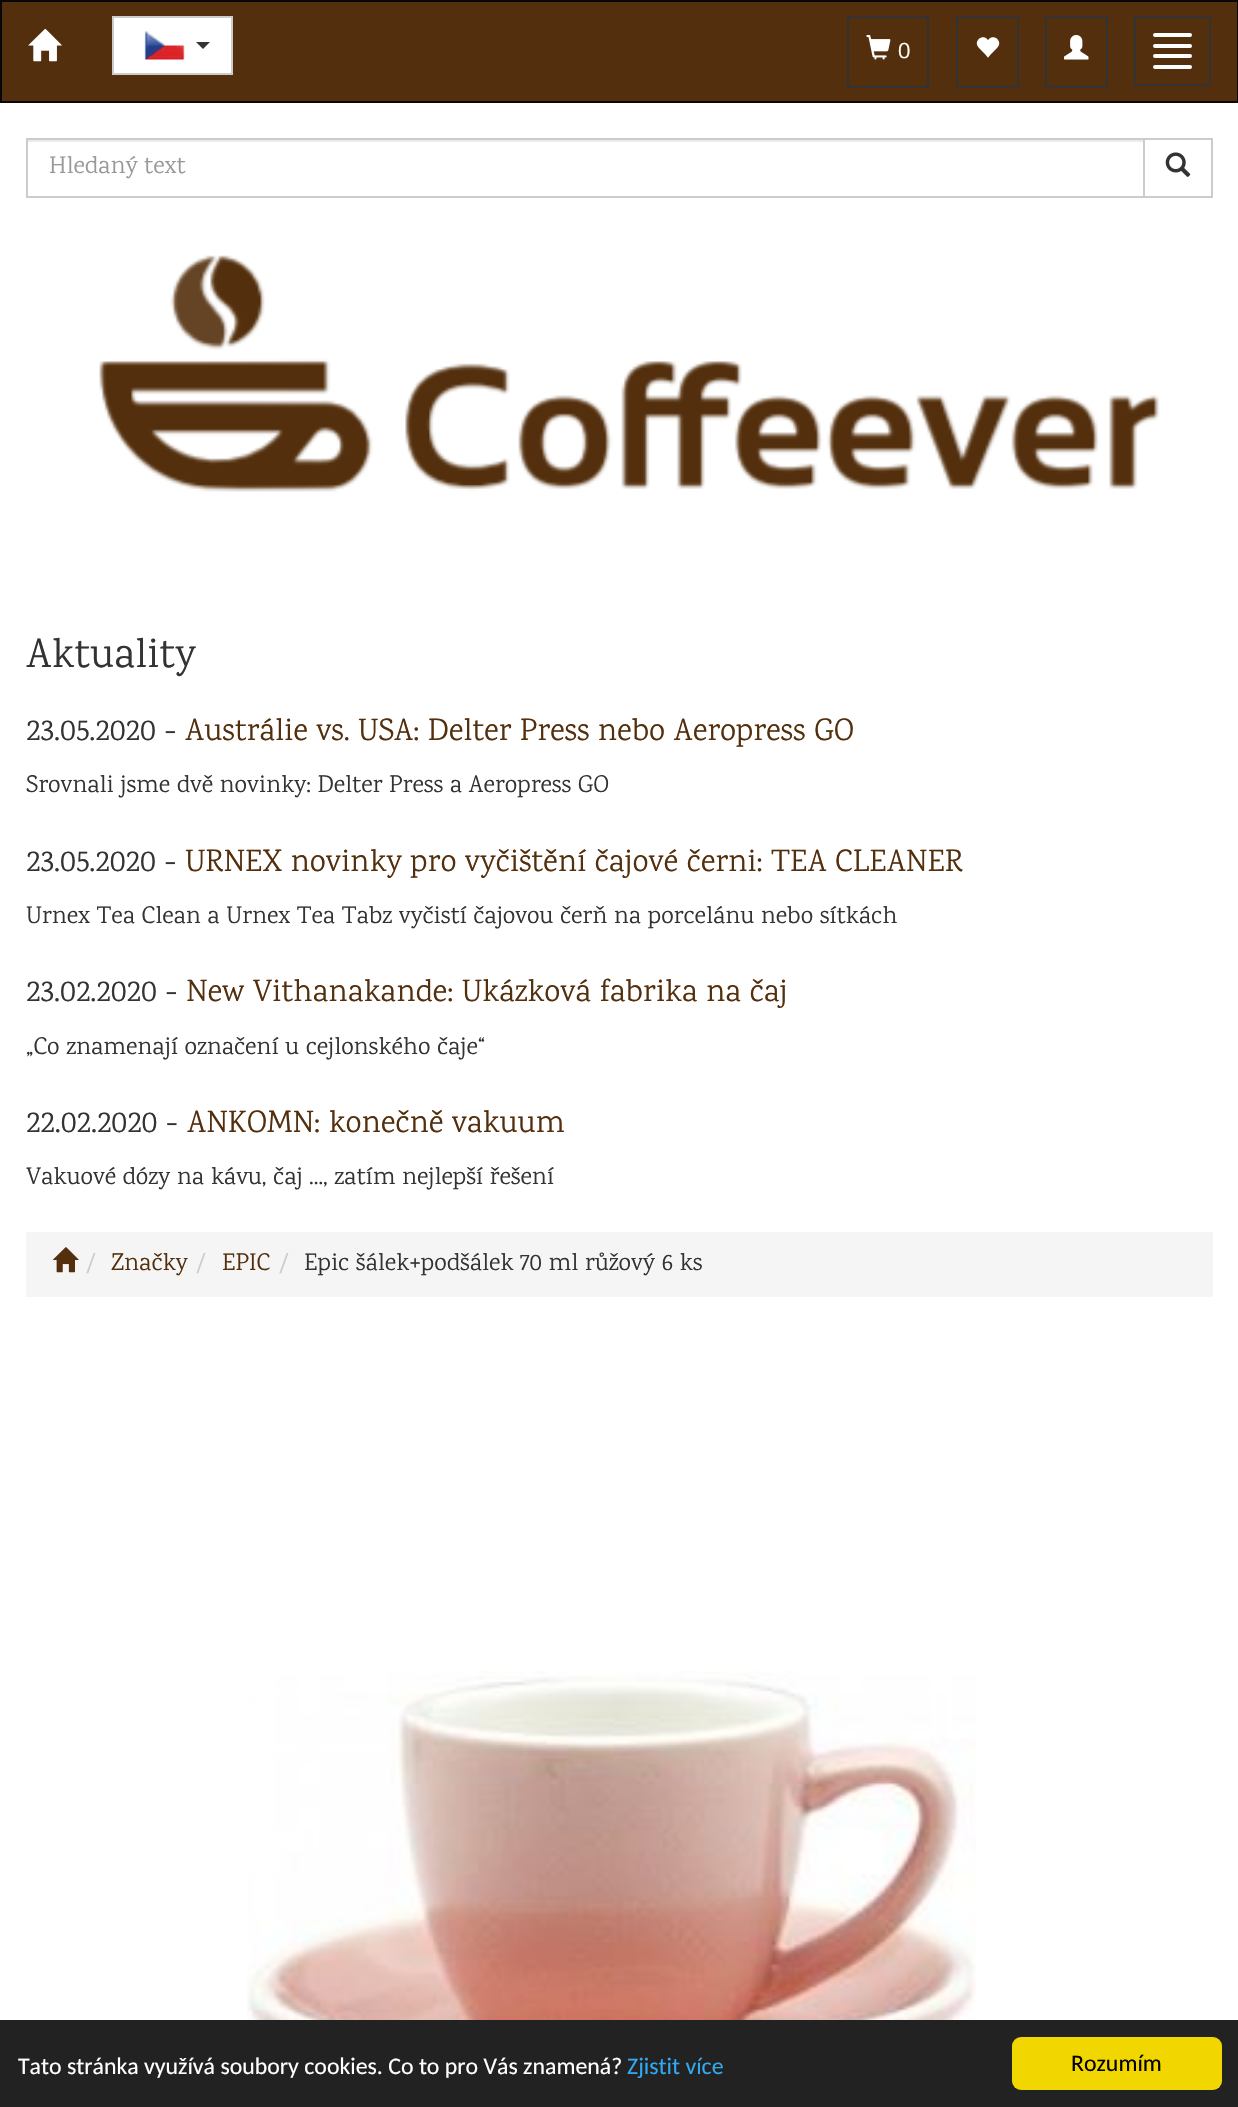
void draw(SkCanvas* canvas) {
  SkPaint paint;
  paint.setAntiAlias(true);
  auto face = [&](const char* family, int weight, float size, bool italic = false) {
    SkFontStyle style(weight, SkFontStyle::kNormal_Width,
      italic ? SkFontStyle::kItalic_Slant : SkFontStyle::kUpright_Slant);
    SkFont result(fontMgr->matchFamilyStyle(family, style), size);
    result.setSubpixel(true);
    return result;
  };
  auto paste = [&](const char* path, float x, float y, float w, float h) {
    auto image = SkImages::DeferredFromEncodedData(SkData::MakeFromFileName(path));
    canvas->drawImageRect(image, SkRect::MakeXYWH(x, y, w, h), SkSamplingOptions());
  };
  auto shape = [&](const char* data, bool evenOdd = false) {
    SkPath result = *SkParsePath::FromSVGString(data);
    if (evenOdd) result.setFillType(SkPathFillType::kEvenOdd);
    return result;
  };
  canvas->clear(0xffffffff);
  paint.setColor(0xff532f0d);
  canvas->drawRect(SkRect::MakeXYWH(1, 1, 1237, 101), paint);
  paint.setStroke(true);
  paint.setStrokeWidth(2);
  paint.setColor(0xff080808);
  canvas->drawRect(SkRect::MakeXYWH(1, 1, 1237, 101), paint);
  paste("img/1.png", 28, 28, 34, 34);
  paint.setStroke(false);
  paint.setColor(0xffffffff);
  canvas->drawRect(SkRect::MakeXYWH(113, 17, 119, 57), paint);
  paint.setStroke(true);
  paint.setColor(0xffcccccc);
  canvas->drawRect(SkRect::MakeXYWH(113, 17, 119, 57), paint);
  paste("img/2.png", 144, 31, 41, 29);
  paint.setStroke(false);
  paint.setColor(0xff333333);
  canvas->drawPath(shape("M196 42H210L203 49Z"), paint);
  paint.setStroke(true);
  canvas->drawRect(SkRect::MakeXYWH(848, 17, 80, 70), paint);
  paste("img/3.png", 866, 35, 25, 25);
  canvas->drawRect(SkRect::MakeXYWH(957, 17, 61, 70), paint);
  paste("img/4.png", 976, 37, 24, 21);
  canvas->drawRect(SkRect::MakeXYWH(1046, 17, 61, 70), paint);
  paste("img/5.png", 1064, 35, 25, 25);
  canvas->drawRect(SkRect::MakeXYWH(1135, 17, 75, 68), paint);
  paint.setStroke(false);
  paint.setColor(0xffffffff);
  canvas->drawRoundRect(SkRect::MakeXYWH(1153, 33, 39, 4), 2, 2, paint);
  canvas->drawRoundRect(SkRect::MakeXYWH(1153, 44, 39, 4), 2, 2, paint);
  canvas->drawRoundRect(SkRect::MakeXYWH(1153, 54, 39, 4), 2, 2, paint);
  canvas->drawRoundRect(SkRect::MakeXYWH(1153, 65, 39, 4), 2, 2, paint);
  paint.setColor(0xffececec);
  canvas->drawRect(SkRect::MakeXYWH(28, 140, 1115, 2), paint);
  paint.setStroke(true);
  paint.setColor(0xffcccccc);
  canvas->drawRect(SkRect::MakeXYWH(1144, 139, 68, 58), paint);
  canvas->drawRect(SkRect::MakeXYWH(27, 139, 1117, 58), paint);
  paste("img/6.png", 1165, 152, 26, 25);
  paste("img/7.png", 99, 255, 1061, 237);
  paint.setStroke(false);
  paint.setColor(0xfff5f5f5);
  canvas->drawRect(SkRect::MakeXYWH(26, 1232, 1187, 65), paint);
  paste("img/8.png", 52, 1247, 27, 26);
  paste("img/9.png", 247, 1671, 729, 349);
  paint.setColor(0xff222222);
  canvas->drawRect(SkRect::MakeXYWH(0, 2020, 1238, 87), paint);
  paint.setColor(0xfff1d600);
  canvas->drawRoundRect(SkRect::MakeXYWH(1012, 2037, 210, 53), 9, 9, paint);
  auto f0 = face("Karma", 400, 24.5f);
  paint.setColor(0xffffffff);
  canvas->drawString("0", 898, 58, f0, paint);
  paint.setColor(0xff999999);
  canvas->drawString("Hledaný text", 49, 173, f0, paint);
  auto f1 = face("Karma", 400, 42);
  paint.setColor(0xff333333);
  canvas->drawString("Aktuality", 26, 667, f1, paint);
  auto f2 = face("Karma", 400, 31.5f);
  canvas->drawString("23.05.2020 -", 26, 740, f2, paint);
  paint.setColor(0xff532f0d);
  canvas->drawString("Austrálie vs. USA: Delter Press nebo Aeropress GO", 185, 740, f2, paint);
  paint.setColor(0xff333333);
  canvas->drawString("Srovnali jsme dvě novinky: Delter Press a Aeropress GO", 26, 792, f0, paint);
  canvas->drawString("23.05.2020 -", 26, 871, f2, paint);
  paint.setColor(0xff532f0d);
  canvas->drawString("URNEX novinky pro vyčištění čajové černi: TEA CLEANER", 185, 871, f2, paint);
  paint.setColor(0xff333333);
  canvas->drawString("Urnex Tea Clean a Urnex Tea Tabz vyčistí čajovou čerň na porcelánu nebo sítkách", 26, 923, f0, paint);
  canvas->drawString("23.02.2020 -", 26, 1001, f2, paint);
  paint.setColor(0xff532f0d);
  canvas->drawString("New Vithanakande: Ukázková fabrika na čaj", 186, 1001, f2, paint);
  paint.setColor(0xff333333);
  canvas->drawString("„Co znamenají označení u cejlonského čaje“", 26, 1054, f0, paint);
  canvas->drawString("22.02.2020 -", 26, 1132, f2, paint);
  paint.setColor(0xff532f0d);
  canvas->drawString("ANKOMN: konečně vakuum", 187, 1132, f2, paint);
  paint.setColor(0xff333333);
  canvas->drawString("Vakuové dózy na kávu, čaj ..., zatím nejlepší řešení", 26, 1184, f0, paint);
  paint.setColor(0xffcccccc);
  canvas->drawString("/", 86, 1270, f0, paint);
  paint.setColor(0xff532f0d);
  canvas->drawString("Značky", 111, 1270, f0, paint);
  paint.setColor(0xffcccccc);
  canvas->drawString("/", 196, 1270, f0, paint);
  paint.setColor(0xff532f0d);
  canvas->drawString("EPIC", 222, 1270, f0, paint);
  paint.setColor(0xffcccccc);
  canvas->drawString("/", 279, 1270, f0, paint);
  paint.setColor(0xff333333);
  canvas->drawString("Epic šálek+podšálek 70 ml růžový 6 ks", 304, 1270, f0, paint);
  auto f3 = face("Carlito", 400, 23.8f);
  paint.setColor(0xffffffff);
  canvas->drawString("Tato stránka využívá soubory cookies. Co to pro Vás znamená?", 18, 2074, f3, paint);
  paint.setColor(0xff31a8f0);
  canvas->drawString("Zjistit více", 627, 2074, f3, paint);
  paint.setColor(0xff000000);
  canvas->drawString("Rozumím", 1071, 2071, f3, paint);
}
